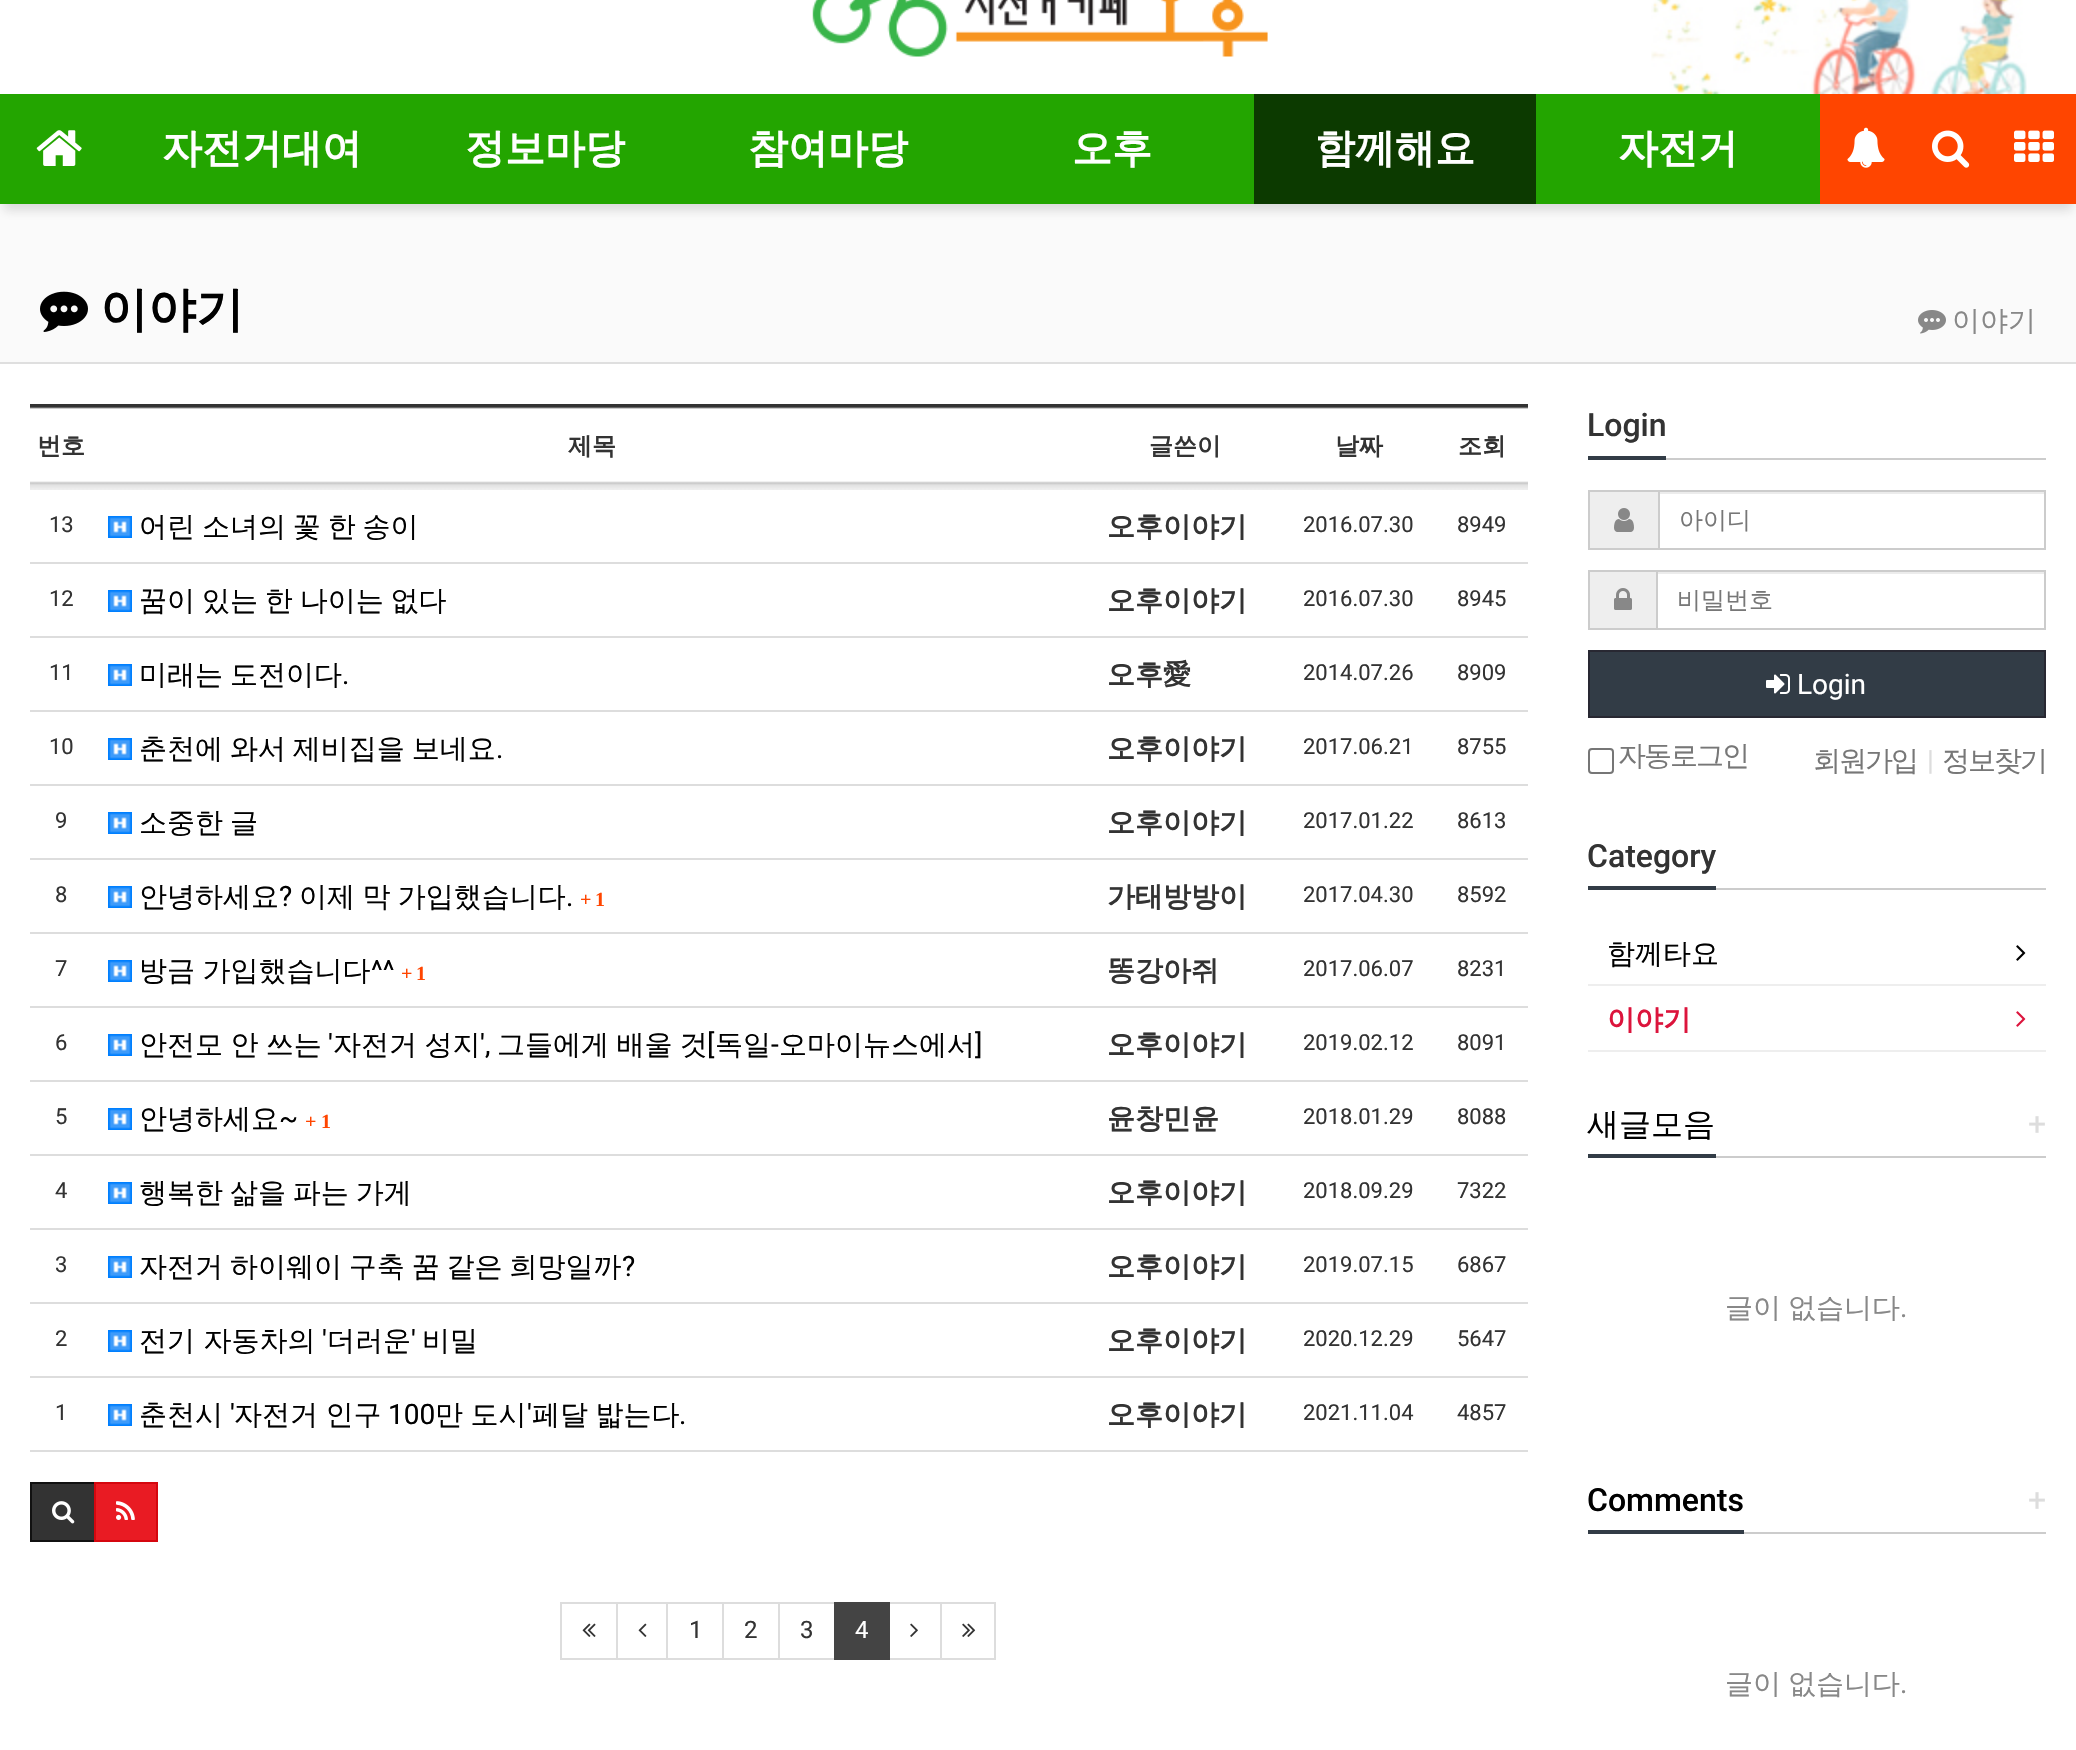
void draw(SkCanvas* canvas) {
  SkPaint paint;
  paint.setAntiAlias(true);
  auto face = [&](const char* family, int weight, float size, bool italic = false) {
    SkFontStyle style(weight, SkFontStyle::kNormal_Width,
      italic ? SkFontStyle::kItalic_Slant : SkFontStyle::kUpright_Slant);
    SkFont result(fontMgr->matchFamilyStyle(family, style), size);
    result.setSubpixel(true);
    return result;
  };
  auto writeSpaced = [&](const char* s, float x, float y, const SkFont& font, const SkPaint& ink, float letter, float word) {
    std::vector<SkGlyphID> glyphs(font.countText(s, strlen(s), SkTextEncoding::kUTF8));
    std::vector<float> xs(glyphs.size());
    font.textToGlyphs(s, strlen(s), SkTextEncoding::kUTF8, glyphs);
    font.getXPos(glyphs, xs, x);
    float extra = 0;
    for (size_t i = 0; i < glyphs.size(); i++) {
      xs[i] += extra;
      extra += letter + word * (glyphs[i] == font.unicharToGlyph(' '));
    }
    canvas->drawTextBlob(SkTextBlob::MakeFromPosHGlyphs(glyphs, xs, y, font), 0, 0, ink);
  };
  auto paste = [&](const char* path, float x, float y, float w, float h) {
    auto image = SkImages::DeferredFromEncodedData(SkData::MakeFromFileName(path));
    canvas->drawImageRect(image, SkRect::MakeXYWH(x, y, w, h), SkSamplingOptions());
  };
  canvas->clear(0xffffffff);
  paste("img/1.png", 1651, 0, 376, 94);
  paste("img/2.png", 812, 0, 456, 57);
  paint.setColor(0xfffafafa);
  canvas->drawRect(SkRect::MakeXYWH(0, 204, 2076, 158), paint);
  paint.setColor(0x26191919);
  paint.setMaskFilter(SkMaskFilter::MakeBlur(kNormal_SkBlurStyle, 5));
  canvas->drawRect(SkRect::MakeXYWH(4, 108, 2068, 102), paint);
  paint.setMaskFilter(nullptr);
  paint.setColor(0xff23a500);
  canvas->drawRect(SkRect::MakeXYWH(0, 94, 1820, 110), paint);
  paste("img/3.png", 36, 130, 46, 36);
  paint.setColor(0xff0c3a00);
  canvas->drawRect(SkRect::MakeXYWH(1254, 94, 282, 110), paint);
  paint.setColor(0xffff4500);
  canvas->drawRect(SkRect::MakeXYWH(1820, 94, 256, 110), paint);
  paste("img/4.png", 1847, 127, 38, 41);
  paste("img/5.png", 1932, 130, 38, 38);
  paste("img/6.png", 2014, 130, 40, 32);
  paint.setColor(0xffdfdfdf);
  canvas->drawRect(SkRect::MakeXYWH(0, 362, 2076, 2), paint);
  paste("img/7.png", 40, 291, 48, 41);
  paste("img/8.png", 1918, 310, 28, 24);
  paint.setColor(0xffdddddd);
  canvas->drawRect(SkRect::MakeXYWH(30, 1450, 1498, 2), paint);
  paste("img/9.png", 30, 404, 62, 86);
  paste("img/10.png", 92, 404, 998, 86);
  paste("img/11.png", 1090, 404, 190, 86);
  paste("img/12.png", 1280, 404, 158, 86);
  paste("img/13.png", 1438, 404, 90, 86);
  paste("img/14.png", 108, 516, 24, 22);
  paste("img/14.png", 108, 590, 24, 22);
  canvas->drawRect(SkRect::MakeXYWH(30, 562, 1498, 2), paint);
  paste("img/14.png", 108, 664, 24, 22);
  canvas->drawRect(SkRect::MakeXYWH(30, 636, 1498, 2), paint);
  paste("img/14.png", 108, 738, 24, 22);
  canvas->drawRect(SkRect::MakeXYWH(30, 710, 1498, 2), paint);
  paste("img/14.png", 108, 812, 24, 22);
  canvas->drawRect(SkRect::MakeXYWH(30, 784, 1498, 2), paint);
  paste("img/14.png", 108, 886, 24, 22);
  canvas->drawRect(SkRect::MakeXYWH(30, 858, 1498, 2), paint);
  paste("img/14.png", 108, 960, 24, 22);
  canvas->drawRect(SkRect::MakeXYWH(30, 932, 1498, 2), paint);
  paste("img/14.png", 108, 1034, 24, 22);
  canvas->drawRect(SkRect::MakeXYWH(30, 1006, 1498, 2), paint);
  paste("img/14.png", 108, 1108, 24, 22);
  canvas->drawRect(SkRect::MakeXYWH(30, 1080, 1498, 2), paint);
  paste("img/14.png", 108, 1182, 24, 22);
  canvas->drawRect(SkRect::MakeXYWH(30, 1154, 1498, 2), paint);
  paste("img/14.png", 108, 1256, 24, 22);
  canvas->drawRect(SkRect::MakeXYWH(30, 1228, 1498, 2), paint);
  paste("img/14.png", 108, 1330, 24, 22);
  canvas->drawRect(SkRect::MakeXYWH(30, 1302, 1498, 2), paint);
  paste("img/14.png", 108, 1404, 24, 22);
  canvas->drawRect(SkRect::MakeXYWH(30, 1376, 1498, 2), paint);
  paint.setColor(0xff333333);
  canvas->drawRect(SkRect::MakeXYWH(31, 1483, 64, 58), paint);
  paint.setStroke(true);
  paint.setStrokeWidth(2);
  paint.setColor(0xff111111);
  canvas->drawRect(SkRect::MakeXYWH(31, 1483, 64, 58), paint);
  paste("img/15.png", 52, 1501, 23, 23);
  paint.setStroke(false);
  paint.setColor(0xffe91b23);
  canvas->drawRect(SkRect::MakeXYWH(95, 1483, 62, 58), paint);
  paint.setStroke(true);
  paint.setColor(0xffd5070f);
  canvas->drawRect(SkRect::MakeXYWH(95, 1483, 62, 58), paint);
  paste("img/16.png", 116, 1501, 19, 19);
  paint.setColor(0xffdddddd);
  canvas->drawRect(SkRect::MakeXYWH(561, 1603, 56, 56), paint);
  paste("img/17.png", 582, 1623, 14, 14);
  canvas->drawRect(SkRect::MakeXYWH(617, 1603, 50, 56), paint);
  paste("img/18.png", 638, 1623, 9, 14);
  canvas->drawRect(SkRect::MakeXYWH(667, 1603, 56, 56), paint);
  canvas->drawRect(SkRect::MakeXYWH(723, 1603, 56, 56), paint);
  canvas->drawRect(SkRect::MakeXYWH(779, 1603, 56, 56), paint);
  canvas->drawRect(SkRect::MakeXYWH(889, 1603, 52, 56), paint);
  paint.setStroke(false);
  paint.setColor(0xff444444);
  canvas->drawRect(SkRect::MakeXYWH(834, 1602, 56, 58), paint);
  paste("img/19.png", 910, 1623, 8, 14);
  paint.setStroke(true);
  paint.setColor(0xffdddddd);
  canvas->drawRect(SkRect::MakeXYWH(941, 1603, 54, 56), paint);
  paste("img/20.png", 962, 1623, 14, 14);
  paint.setStroke(false);
  {
    const struct { float x, y, w, h; SkColor color; } items[] = {
      {1666, 458, 380, 2, 0xffcccccc},
      {1588, 456, 78, 4, 0xff323c46},
      {1590, 492, 68, 56, 0xffeeeeee},
      {1588, 490, 70, 2, 0xffcccccc},
      {1588, 548, 70, 2, 0xffcccccc},
      {1588, 490, 2, 60, 0xffcccccc},
    };
    for (auto [x, y, w, h, color] : items) {
      paint.setColor(color);
      canvas->drawRect(SkRect::MakeXYWH(x, y, w, h), paint);
    }
  }
  paste("img/21.png", 1614, 508, 20, 24);
  paint.setColor(0xffececec);
  canvas->drawRect(SkRect::MakeXYWH(1660, 492, 384, 2), paint);
  paint.setStroke(true);
  paint.setColor(0xffcccccc);
  canvas->drawRect(SkRect::MakeXYWH(1659, 491, 386, 58), paint);
  paint.setStroke(false);
  {
    const struct { float x, y, w, h; SkColor color; } items[] = {
      {1590, 572, 66, 56, 0xffeeeeee},
      {1588, 570, 68, 2, 0xffcccccc},
      {1588, 628, 68, 2, 0xffcccccc},
      {1588, 570, 2, 60, 0xffcccccc},
    };
    for (auto [x, y, w, h, color] : items) {
      paint.setColor(color);
      canvas->drawRect(SkRect::MakeXYWH(x, y, w, h), paint);
    }
  }
  paste("img/22.png", 1614, 588, 18, 22);
  paint.setColor(0xffececec);
  canvas->drawRect(SkRect::MakeXYWH(1658, 572, 386, 2), paint);
  paint.setStroke(true);
  paint.setColor(0xffcccccc);
  canvas->drawRect(SkRect::MakeXYWH(1657, 571, 388, 58), paint);
  paint.setStroke(false);
  paint.setColor(0xff323c46);
  canvas->drawRect(SkRect::MakeXYWH(1589, 651, 456, 66), paint);
  paint.setStroke(true);
  paint.setColor(0xff282832);
  canvas->drawRect(SkRect::MakeXYWH(1589, 651, 456, 66), paint);
  paste("img/23.png", 1766, 674, 24, 20);
  paint.setColor(0xff767676);
  canvas->drawRoundRect(SkRect::MakeXYWH(1589, 749, 24, 24), 3, 3, paint);
  paint.setStroke(false);
  {
    const struct { float x, y, w, h; SkColor color; } items[] = {
      {1716, 888, 330, 2, 0xffcccccc},
      {1588, 886, 128, 4, 0xff323c46},
      {1588, 984, 458, 2, 0xffeeeeee},
    };
    for (auto [x, y, w, h, color] : items) {
      paint.setColor(color);
      canvas->drawRect(SkRect::MakeXYWH(x, y, w, h), paint);
    }
  }
  paste("img/24.png", 2016, 945, 10, 16);
  canvas->drawRect(SkRect::MakeXYWH(1588, 1050, 458, 2), paint);
  paste("img/25.png", 2016, 1011, 10, 16);
  {
    const struct { float x, y, w, h; SkColor color; } items[] = {
      {1716, 1156, 330, 2, 0xffcccccc},
      {1588, 1154, 128, 4, 0xff323c46},
      {1744, 1532, 302, 2, 0xffcccccc},
      {1588, 1530, 156, 4, 0xff323c46},
    };
    for (auto [x, y, w, h, color] : items) {
      paint.setColor(color);
      canvas->drawRect(SkRect::MakeXYWH(x, y, w, h), paint);
    }
  }
  auto f0 = face("WenQuanYi Zen Hei", 700, 40);
  paint.setColor(0xffffffff);
  {
    const struct { const char* s; float x, y; } items[] = {
      {"자전거대여", 162, 162},
      {"정보마당", 465, 162},
      {"참여마당", 748, 162},
      {"오후", 1072, 162},
      {"함께해요", 1315, 162},
      {"자전거", 1618, 162},
    };
    for (auto [s, x, y] : items) {
      canvas->drawString(s, x, y, f0, paint);
    }
  }
  auto f1 = face("WenQuanYi Zen Hei", 700, 48);
  paint.setColor(0xff000000);
  canvas->drawString("이야기", 100, 326, f1, paint);
  auto f2 = face("WenQuanYi Zen Hei", 500, 28);
  paint.setColor(0xff888888);
  canvas->drawString("이야기", 1952, 330, f2, paint);
  auto f3 = face("WenQuanYi Zen Hei", 700, 24);
  paint.setColor(0xff333333);
  {
    const struct { const char* s; float x, y; } items[] = {
      {"번호", 37, 454},
      {"제목", 568, 454},
      {"글쓴이", 1149, 454},
      {"날짜", 1335, 454},
      {"조회", 1458, 454},
    };
    for (auto [s, x, y] : items) {
      canvas->drawString(s, x, y, f3, paint);
    }
  }
  auto f4 = face("Roboto", 400, 22);
  canvas->drawString("13", 49, 532, f4, paint);
  paint.setColor(0xff000000);
  writeSpaced("어린 소녀의 꽃 한 송이", 139, 536, f2, paint, 0, -1.5f);
  auto f5 = face("WenQuanYi Zen Hei", 700, 28);
  paint.setColor(0xff333333);
  canvas->drawString("오후이야기", 1107, 536, f5, paint);
  {
    const struct { const char* s; float x, y; } items[] = {
      {"2016.07.30", 1303, 532},
      {"8949", 1457, 532},
      {"12", 49, 606},
    };
    for (auto [s, x, y] : items) {
      canvas->drawString(s, x, y, f4, paint);
    }
  }
  paint.setColor(0xff000000);
  writeSpaced("꿈이 있는 한 나이는 없다", 139, 610, f2, paint, 0, -1.5f);
  paint.setColor(0xff333333);
  canvas->drawString("오후이야기", 1107, 610, f5, paint);
  {
    const struct { const char* s; float x, y; } items[] = {
      {"2016.07.30", 1303, 606},
      {"8945", 1457, 606},
      {"11", 49, 680},
    };
    for (auto [s, x, y] : items) {
      canvas->drawString(s, x, y, f4, paint);
    }
  }
  paint.setColor(0xff000000);
  writeSpaced("미래는 도전이다", 139, 684, f2, paint, 0, -1.5f);
  auto f6 = face("Roboto", 400, 28);
  canvas->drawString(".", 342, 684, f6, paint);
  paint.setColor(0xff333333);
  canvas->drawString("오후愛", 1107, 684, f5, paint);
  {
    const struct { const char* s; float x, y; } items[] = {
      {"2014.07.26", 1303, 680},
      {"8909", 1457, 680},
      {"10", 49, 754},
    };
    for (auto [s, x, y] : items) {
      canvas->drawString(s, x, y, f4, paint);
    }
  }
  paint.setColor(0xff000000);
  writeSpaced("춘천에 와서 제비집을 보네요", 139, 758, f2, paint, 0, -1.5f);
  canvas->drawString(".", 496, 758, f6, paint);
  paint.setColor(0xff333333);
  canvas->drawString("오후이야기", 1107, 758, f5, paint);
  {
    const struct { const char* s; float x, y; } items[] = {
      {"2017.06.21", 1303, 754},
      {"8755", 1457, 754},
      {"9", 55, 828},
    };
    for (auto [s, x, y] : items) {
      canvas->drawString(s, x, y, f4, paint);
    }
  }
  paint.setColor(0xff000000);
  writeSpaced("소중한 글", 139, 832, f2, paint, 0, -1.5f);
  paint.setColor(0xff333333);
  canvas->drawString("오후이야기", 1107, 832, f5, paint);
  {
    const struct { const char* s; float x, y; } items[] = {
      {"2017.01.22", 1303, 828},
      {"8613", 1457, 828},
      {"8", 55, 902},
    };
    for (auto [s, x, y] : items) {
      canvas->drawString(s, x, y, f4, paint);
    }
  }
  paint.setColor(0xff000000);
  canvas->drawString("안녕하세요", 139, 906, f2, paint);
  canvas->drawString("?", 279, 906, f6, paint);
  writeSpaced("이제 막 가입했습니다", 299, 906, f2, paint, 0, -1);
  canvas->drawString(".", 566, 906, f6, paint);
  auto f7 = face("Liberation Serif", 700, 20);
  paint.setColor(0xffff4500);
  writeSpaced("+", 580, 906, f7, paint, -2, 0);
  writeSpaced("1", 595, 906, f7, paint, -2, 0);
  paint.setColor(0xff333333);
  canvas->drawString("가태방방이", 1107, 906, f5, paint);
  {
    const struct { const char* s; float x, y; } items[] = {
      {"2017.04.30", 1303, 902},
      {"8592", 1457, 902},
      {"7", 55, 976},
    };
    for (auto [s, x, y] : items) {
      canvas->drawString(s, x, y, f4, paint);
    }
  }
  paint.setColor(0xff000000);
  writeSpaced("방금 가입했습니다", 139, 980, f2, paint, 0, -1);
  canvas->drawString("^^", 371, 980, f6, paint);
  paint.setColor(0xffff4500);
  writeSpaced("+", 401, 980, f7, paint, -2, 0);
  writeSpaced("1", 416, 980, f7, paint, -2, 0);
  paint.setColor(0xff333333);
  canvas->drawString("똥강아쥐", 1107, 980, f5, paint);
  {
    const struct { const char* s; float x, y; } items[] = {
      {"2017.06.07", 1303, 976},
      {"8231", 1457, 976},
      {"6", 55, 1050},
    };
    for (auto [s, x, y] : items) {
      canvas->drawString(s, x, y, f4, paint);
    }
  }
  paint.setColor(0xff000000);
  writeSpaced("안전모 안 쓰는", 139, 1054, f2, paint, 0, -1);
  canvas->drawString("'", 328, 1054, f6, paint);
  writeSpaced("자전거 성지", 333, 1054, f2, paint, 0, -1);
  canvas->drawString("',", 480, 1054, f6, paint);
  writeSpaced("그들에게 배울 것", 497, 1054, f2, paint, 0, -1);
  canvas->drawString("[", 707, 1054, f6, paint);
  canvas->drawString("독일", 715, 1054, f2, paint);
  canvas->drawString("-", 771, 1054, f6, paint);
  canvas->drawString("오마이뉴스에서", 779, 1054, f2, paint);
  canvas->drawString("]", 975, 1054, f6, paint);
  paint.setColor(0xff333333);
  canvas->drawString("오후이야기", 1107, 1054, f5, paint);
  {
    const struct { const char* s; float x, y; } items[] = {
      {"2019.02.12", 1303, 1050},
      {"8091", 1457, 1050},
      {"5", 55, 1124},
    };
    for (auto [s, x, y] : items) {
      canvas->drawString(s, x, y, f4, paint);
    }
  }
  paint.setColor(0xff000000);
  canvas->drawString("안녕하세요", 139, 1128, f2, paint);
  canvas->drawString("~", 279, 1128, f6, paint);
  paint.setColor(0xffff4500);
  writeSpaced("+", 305, 1128, f7, paint, -2, 0);
  writeSpaced("1", 321, 1128, f7, paint, -2, 0);
  paint.setColor(0xff333333);
  canvas->drawString("윤창민윤", 1107, 1128, f5, paint);
  {
    const struct { const char* s; float x, y; } items[] = {
      {"2018.01.29", 1303, 1124},
      {"8088", 1457, 1124},
      {"4", 55, 1198},
    };
    for (auto [s, x, y] : items) {
      canvas->drawString(s, x, y, f4, paint);
    }
  }
  paint.setColor(0xff000000);
  writeSpaced("행복한 삶을 파는 가게", 139, 1202, f2, paint, 0, -1.5f);
  paint.setColor(0xff333333);
  canvas->drawString("오후이야기", 1107, 1202, f5, paint);
  {
    const struct { const char* s; float x, y; } items[] = {
      {"2018.09.29", 1303, 1198},
      {"7322", 1457, 1198},
      {"3", 55, 1272},
    };
    for (auto [s, x, y] : items) {
      canvas->drawString(s, x, y, f4, paint);
    }
  }
  paint.setColor(0xff000000);
  writeSpaced("자전거 하이웨이 구축 꿈 같은 희망일까", 139, 1276, f2, paint, 0, -1.5f);
  canvas->drawString("?", 622, 1276, f6, paint);
  paint.setColor(0xff333333);
  canvas->drawString("오후이야기", 1107, 1276, f5, paint);
  {
    const struct { const char* s; float x, y; } items[] = {
      {"2019.07.15", 1303, 1272},
      {"6867", 1457, 1272},
      {"2", 55, 1346},
    };
    for (auto [s, x, y] : items) {
      canvas->drawString(s, x, y, f4, paint);
    }
  }
  paint.setColor(0xff000000);
  canvas->drawString("전기 자동차의", 139, 1350, f2, paint);
  canvas->drawString("'", 322, 1350, f6, paint);
  canvas->drawString("더러운", 327, 1350, f2, paint);
  canvas->drawString("'", 411, 1350, f6, paint);
  canvas->drawString("비밀", 422, 1350, f2, paint);
  paint.setColor(0xff333333);
  canvas->drawString("오후이야기", 1107, 1350, f5, paint);
  {
    const struct { const char* s; float x, y; } items[] = {
      {"2020.12.29", 1303, 1346},
      {"5647", 1457, 1346},
      {"1", 55, 1420},
    };
    for (auto [s, x, y] : items) {
      canvas->drawString(s, x, y, f4, paint);
    }
  }
  paint.setColor(0xff000000);
  canvas->drawString("춘천시", 139, 1424, f2, paint);
  canvas->drawString("'", 230, 1424, f6, paint);
  writeSpaced("자전거 인구", 234, 1424, f2, paint, 0, -1);
  canvas->drawString("100", 388, 1424, f6, paint);
  writeSpaced("만 도시", 435, 1424, f2, paint, 0, -1);
  canvas->drawString("'", 527, 1424, f6, paint);
  writeSpaced("페달 밟는다", 532, 1424, f2, paint, 0, -1);
  canvas->drawString(".", 679, 1424, f6, paint);
  paint.setColor(0xff333333);
  canvas->drawString("오후이야기", 1107, 1424, f5, paint);
  canvas->drawString("2021.11.04", 1303, 1420, f4, paint);
  canvas->drawString("4857", 1457, 1420, f4, paint);
  auto f8 = face("Roboto", 400, 24);
  {
    const struct { const char* s; float x, y; } items[] = {
      {"1", 689, 1638},
      {"2", 744, 1638},
      {"3", 800, 1638},
    };
    for (auto [s, x, y] : items) {
      canvas->drawString(s, x, y, f8, paint);
    }
  }
  paint.setColor(0xffffffff);
  canvas->drawString("4", 855, 1638, f8, paint);
  auto f9 = face("Roboto", 500, 32);
  paint.setColor(0xff333333);
  canvas->drawString("Login", 1587, 436, f9, paint);
  auto f10 = face("WenQuanYi Zen Hei", 500, 24);
  paint.setColor(0xff777777);
  canvas->drawString("아이디", 1679, 528, f10, paint);
  canvas->drawString("비밀번호", 1677, 608, f10, paint);
  paint.setColor(0xffffffff);
  canvas->drawString("Login", 1797, 694, f6, paint);
  paint.setColor(0xff777777);
  writeSpaced("자동로그인", 1618, 765, f2, paint, -2, 0);
  writeSpaced("회원가입", 1813, 770, f2, paint, -2, 0);
  paint.setColor(0xffdddddd);
  writeSpaced("|", 1927, 770, f6, paint, -2, 0);
  paint.setColor(0xff777777);
  writeSpaced("정보찾기", 1942, 770, f2, paint, -2, 0);
  paint.setColor(0xff333333);
  canvas->drawString("Category", 1587, 867, f9, paint);
  paint.setColor(0xff000000);
  canvas->drawString("함께타요", 1607, 963, f2, paint);
  paint.setColor(0xffdc143c);
  canvas->drawString("이야기", 1607, 1029, f5, paint);
  auto f11 = face("WenQuanYi Zen Hei", 500, 32);
  paint.setColor(0xff000000);
  canvas->drawString("새글모음", 1587, 1135, f11, paint);
  auto f12 = face("Roboto", 400, 32);
  paint.setColor(0xffdddddd);
  canvas->drawString("+", 2028, 1135, f12, paint);
  paint.setColor(0xff888888);
  writeSpaced("글이 없습니다", 1725, 1317, f2, paint, 0, -1.5f);
  canvas->drawString(".", 1900, 1317, f6, paint);
  paint.setColor(0xff000000);
  canvas->drawString("Comments", 1587, 1511, f9, paint);
  paint.setColor(0xffdddddd);
  canvas->drawString("+", 2028, 1511, f12, paint);
  paint.setColor(0xff888888);
  writeSpaced("글이 없습니다", 1725, 1693, f2, paint, 0, -1.5f);
  canvas->drawString(".", 1900, 1693, f6, paint);
}
